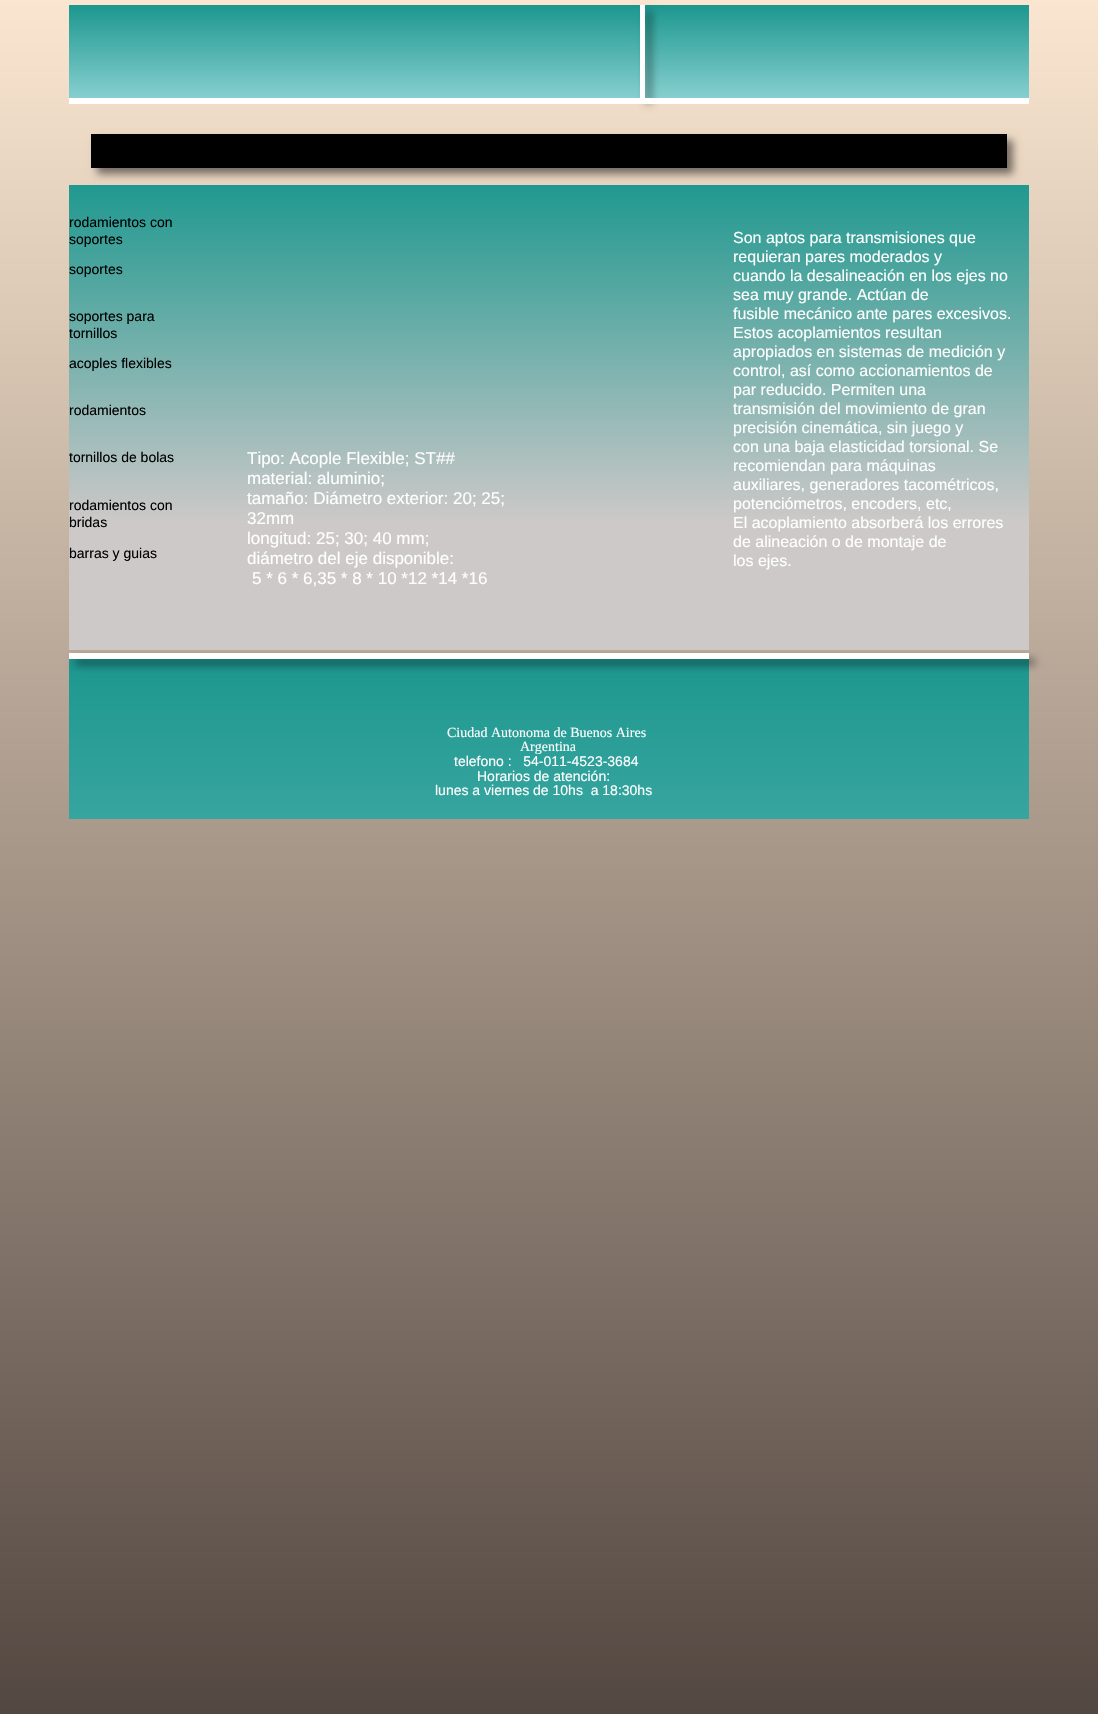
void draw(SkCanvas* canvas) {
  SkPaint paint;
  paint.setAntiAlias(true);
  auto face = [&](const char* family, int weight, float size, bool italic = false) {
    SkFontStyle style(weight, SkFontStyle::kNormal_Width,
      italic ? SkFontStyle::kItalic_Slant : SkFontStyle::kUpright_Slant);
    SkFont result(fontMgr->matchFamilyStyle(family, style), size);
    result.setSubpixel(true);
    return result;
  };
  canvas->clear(0xffffffff);
  {
    const SkColor colors[] = {0xfffae6d0, 0xff534741};
    const float stops[] = {0, 1};
    const SkPoint ends[] = {{549, 0}, {549, 1714}};
    paint.setShader(SkGradientShader::MakeLinear(ends, colors, stops, 2, SkTileMode::kClamp));
    paint.setAlpha(255);
  }
  canvas->drawRect(SkRect::MakeXYWH(0, 0, 1098, 1714), paint);
  {
    const SkColor colors[] = {0xff1c978e, 0xff8dd3d3};
    const float stops[] = {0, 1};
    const SkPoint ends[] = {{549, 5}, {549, 104}};
    paint.setShader(SkGradientShader::MakeLinear(ends, colors, stops, 2, SkTileMode::kClamp));
    paint.setAlpha(255);
  }
  canvas->drawRect(SkRect::MakeXYWH(69, 5, 960, 93), paint);
  paint.setShader(nullptr);
  paint.setColor(0x80000000);
  paint.setMaskFilter(SkMaskFilter::MakeBlur(kNormal_SkBlurStyle, 4));
  canvas->drawRect(SkRect::MakeXYWH(646, 11, 5, 93), paint);
  paint.setMaskFilter(nullptr);
  paint.setColor(0xffffffff);
  canvas->drawRect(SkRect::MakeXYWH(640, 5, 5, 93), paint);
  canvas->drawRect(SkRect::MakeXYWH(69, 98, 960, 6), paint);
  {
    const SkColor colors[] = {0xff209990, 0xffcec9c9};
    const float stops[] = {0, 0.73f};
    const SkPoint ends[] = {{549, 185}, {549, 650}};
    paint.setShader(SkGradientShader::MakeLinear(ends, colors, stops, 2, SkTileMode::kClamp));
    paint.setAlpha(255);
  }
  canvas->drawRect(SkRect::MakeXYWH(69, 185, 960, 465), paint);
  paint.setShader(nullptr);
  paint.setColor(0x80000000);
  paint.setMaskFilter(SkMaskFilter::MakeBlur(kNormal_SkBlurStyle, 4));
  canvas->drawRect(SkRect::MakeXYWH(97, 140, 916, 34), paint);
  paint.setMaskFilter(nullptr);
  paint.setColor(0xff000000);
  canvas->drawRect(SkRect::MakeXYWH(91, 134, 916, 34), paint);
  {
    const SkColor colors[] = {0xff1c978e, 0xff37a59f};
    const float stops[] = {0, 1};
    const SkPoint ends[] = {{549, 657}, {549, 819}};
    paint.setShader(SkGradientShader::MakeLinear(ends, colors, stops, 2, SkTileMode::kClamp));
    paint.setAlpha(255);
  }
  canvas->drawRect(SkRect::MakeXYWH(69, 659, 960, 160), paint);
  paint.setShader(nullptr);
  paint.setColor(0x80000000);
  paint.setMaskFilter(SkMaskFilter::MakeBlur(kNormal_SkBlurStyle, 4));
  canvas->drawRect(SkRect::MakeXYWH(75, 659, 960, 6), paint);
  paint.setMaskFilter(nullptr);
  paint.setColor(0xffffffff);
  canvas->drawRect(SkRect::MakeXYWH(69, 653, 960, 6), paint);
  auto f0 = face("Liberation Sans", 400, 14);
  paint.setColor(0xff000000);
  {
    const struct { const char* s; float x, y; } items[] = {
      {"rodamientos con", 69, 227},
      {"soportes", 69, 244},
      {"soportes", 69, 274},
      {"soportes para", 69, 321},
      {"tornillos", 69, 338},
      {"acoples flexibles", 69, 368},
      {"rodamientos", 69, 415},
      {"tornillos de bolas", 69, 462},
      {"rodamientos con", 69, 510},
      {"bridas", 69, 527},
      {"barras y guias", 69, 558},
    };
    for (auto [s, x, y] : items) {
      canvas->drawString(s, x, y, f0, paint);
    }
  }
  auto f1 = face("Liberation Sans", 400, 17);
  paint.setColor(0xffffffff);
  {
    const struct { const char* s; float x, y; } items[] = {
      {"Tipo: Acople Flexible; ST##", 247, 464},
      {"material: aluminio;", 247, 484},
      {"tamaño: Diámetro exterior: 20; 25;", 247, 504},
      {"32mm", 247, 524},
      {"longitud: 25; 30; 40 mm;", 247, 544},
      {"diámetro del eje disponible:", 247, 564},
      {"5 * 6 * 6,35 * 8 * 10 *12 *14 *16", 252, 584},
    };
    for (auto [s, x, y] : items) {
      canvas->drawString(s, x, y, f1, paint);
    }
  }
  auto f2 = face("Liberation Sans", 400, 16);
  {
    const struct { const char* s; float x, y; } items[] = {
      {"Son aptos para transmisiones que", 733, 243},
      {"requieran pares moderados y", 733, 262},
      {"cuando la desalineación en los ejes no", 733, 281},
      {"sea muy grande. Actúan de", 733, 300},
      {"fusible mecánico ante pares excesivos.", 733, 319},
      {"Estos acoplamientos resultan", 733, 338},
      {"apropiados en sistemas de medición y", 733, 357},
      {"control, así como accionamientos de", 733, 376},
      {"par reducido. Permiten una", 733, 395},
      {"transmisión del movimiento de gran", 733, 414},
      {"precisión cinemática, sin juego y", 733, 433},
      {"con una baja elasticidad torsional. Se", 733, 452},
      {"recomiendan para máquinas", 733, 471},
      {"auxiliares, generadores tacométricos,", 733, 490},
      {"potenciómetros, encoders, etc,", 733, 509},
      {"El acoplamiento absorberá los errores", 733, 528},
      {"de alineación o de montaje de", 733, 547},
      {"los ejes.", 733, 566},
    };
    for (auto [s, x, y] : items) {
      canvas->drawString(s, x, y, f2, paint);
    }
  }
  auto f3 = face("Liberation Serif", 400, 14);
  canvas->drawString("Ciudad Autonoma de Buenos Aires", 447, 737, f3, paint);
  canvas->drawString("Argentina", 520, 751, f3, paint);
  {
    const struct { const char* s; float x, y; } items[] = {
      {"telefono :   54-011-4523-3684", 454, 766},
      {"Horarios de atención:", 477, 781},
      {"lunes a viernes de 10hs  a 18:30hs", 435, 795},
    };
    for (auto [s, x, y] : items) {
      canvas->drawString(s, x, y, f0, paint);
    }
  }
}
